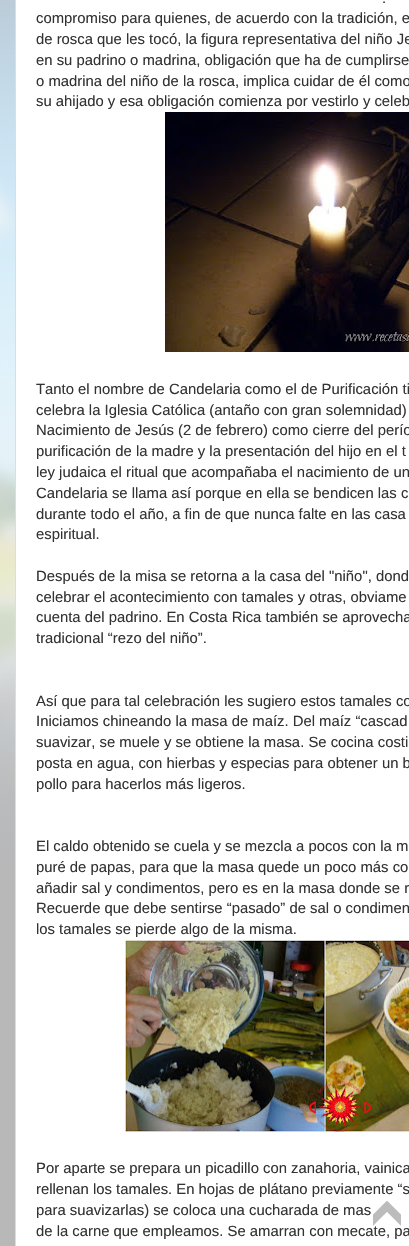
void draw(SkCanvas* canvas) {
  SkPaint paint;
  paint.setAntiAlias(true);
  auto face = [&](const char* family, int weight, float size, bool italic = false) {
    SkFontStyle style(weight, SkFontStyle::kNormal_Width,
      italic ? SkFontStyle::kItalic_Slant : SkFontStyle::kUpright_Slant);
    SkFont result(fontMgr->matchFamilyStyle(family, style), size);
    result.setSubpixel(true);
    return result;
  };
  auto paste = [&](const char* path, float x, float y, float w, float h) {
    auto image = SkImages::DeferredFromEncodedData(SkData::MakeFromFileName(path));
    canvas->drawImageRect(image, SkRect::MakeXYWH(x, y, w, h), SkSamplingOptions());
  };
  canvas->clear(0xffb8b8b8);
  paste("img/1.png", 0, 0, 15, 862);
  paint.setColor(0xffffffff);
  canvas->drawRect(SkRect::MakeXYWH(15.5f, -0.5f, 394, 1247), paint);
  paint.setStroke(true);
  paint.setStrokeWidth(1);
  paint.setColor(0xffdddddd);
  canvas->drawRect(SkRect::MakeXYWH(15.5f, -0.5f, 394, 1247), paint);
  paste("img/2.png", 165, 112, 244, 240);
  paste("img/3.png", 125, 940, 284, 192);
  auto f0 = face("Liberation Sans", 400, 14.85f);
  paint.setStroke(false);
  paint.setColor(0xff333333);
  {
    const struct { const char* s; float x, y; } items[] = {
      {".", 382, 3},
      {"compromiso para quienes, de acuerdo con la tradición, e", 36, 23},
      {"de rosca que les tocó, la figura representativa del niño Je", 36, 44},
      {"en su padrino o madrina, obligación que ha de cumplirse", 36, 65},
      {"o madrina del niño de la rosca, implica cuidar de él como", 36, 86},
      {"su ahijado y esa obligación comienza por vestirlo y celeb", 36, 106},
      {"Tanto el nombre de Candelaria como el de Purificación ti", 36, 394},
      {"celebra la Iglesia Católica (antaño con gran solemnidad)", 36, 415},
      {"Nacimiento de Jesús (2 de febrero) como cierre del perío", 36, 435},
      {"purificación de la madre y la presentación del hijo en el t", 36, 456},
      {"ley judaica el ritual que acompañaba el nacimiento de un", 36, 477},
      {"Candelaria se llama así porque en ella se bendicen las c", 36, 498},
      {"durante todo el año, a fin de que nunca falte en las casa", 36, 519},
      {"espiritual.", 36, 539},
      {"Después de la misa se retorna a la casa del \"niño\", dond", 36, 581},
      {"celebrar el acontecimiento con tamales y otras, obviame", 36, 602},
      {"cuenta del padrino. En Costa Rica también se aprovecha", 36, 622},
      {"tradicional “rezo del niño”.", 36, 643},
      {"Así que para tal celebración les sugiero estos tamales co", 36, 706},
      {"Iniciamos chineando la masa de maíz. Del maíz “cascad", 36, 726},
      {"suavizar, se muele y se obtiene la masa. Se cocina costi", 36, 747},
      {"posta en agua, con hierbas y especias para obtener un b", 36, 768},
      {"pollo para hacerlos más ligeros.", 36, 789},
      {"El caldo obtenido se cuela y se mezcla a pocos con la m", 36, 851},
      {"puré de papas, para que la masa quede un poco más co", 36, 872},
      {"añadir sal y condimentos, pero es en la masa donde se r", 36, 893},
      {"Recuerde que debe sentirse “pasado” de sal o condimen", 36, 913},
      {"los tamales se pierde algo de la misma.", 36, 934},
      {"Por aparte se prepara un picadillo con zanahoria, vainica", 36, 1173},
      {"rellenan los tamales. En hojas de plátano previamente “s", 36, 1194},
      {"para suavizarlas) se coloca una cucharada de mas", 36, 1215},
      {"de la carne que empleamos. Se amarran con mecate, pa", 36, 1236},
    };
    for (auto [s, x, y] : items) {
      canvas->drawString(s, x, y, f0, paint);
    }
  }
  paste("img/4.png", 373, 1201, 28, 25);
}
